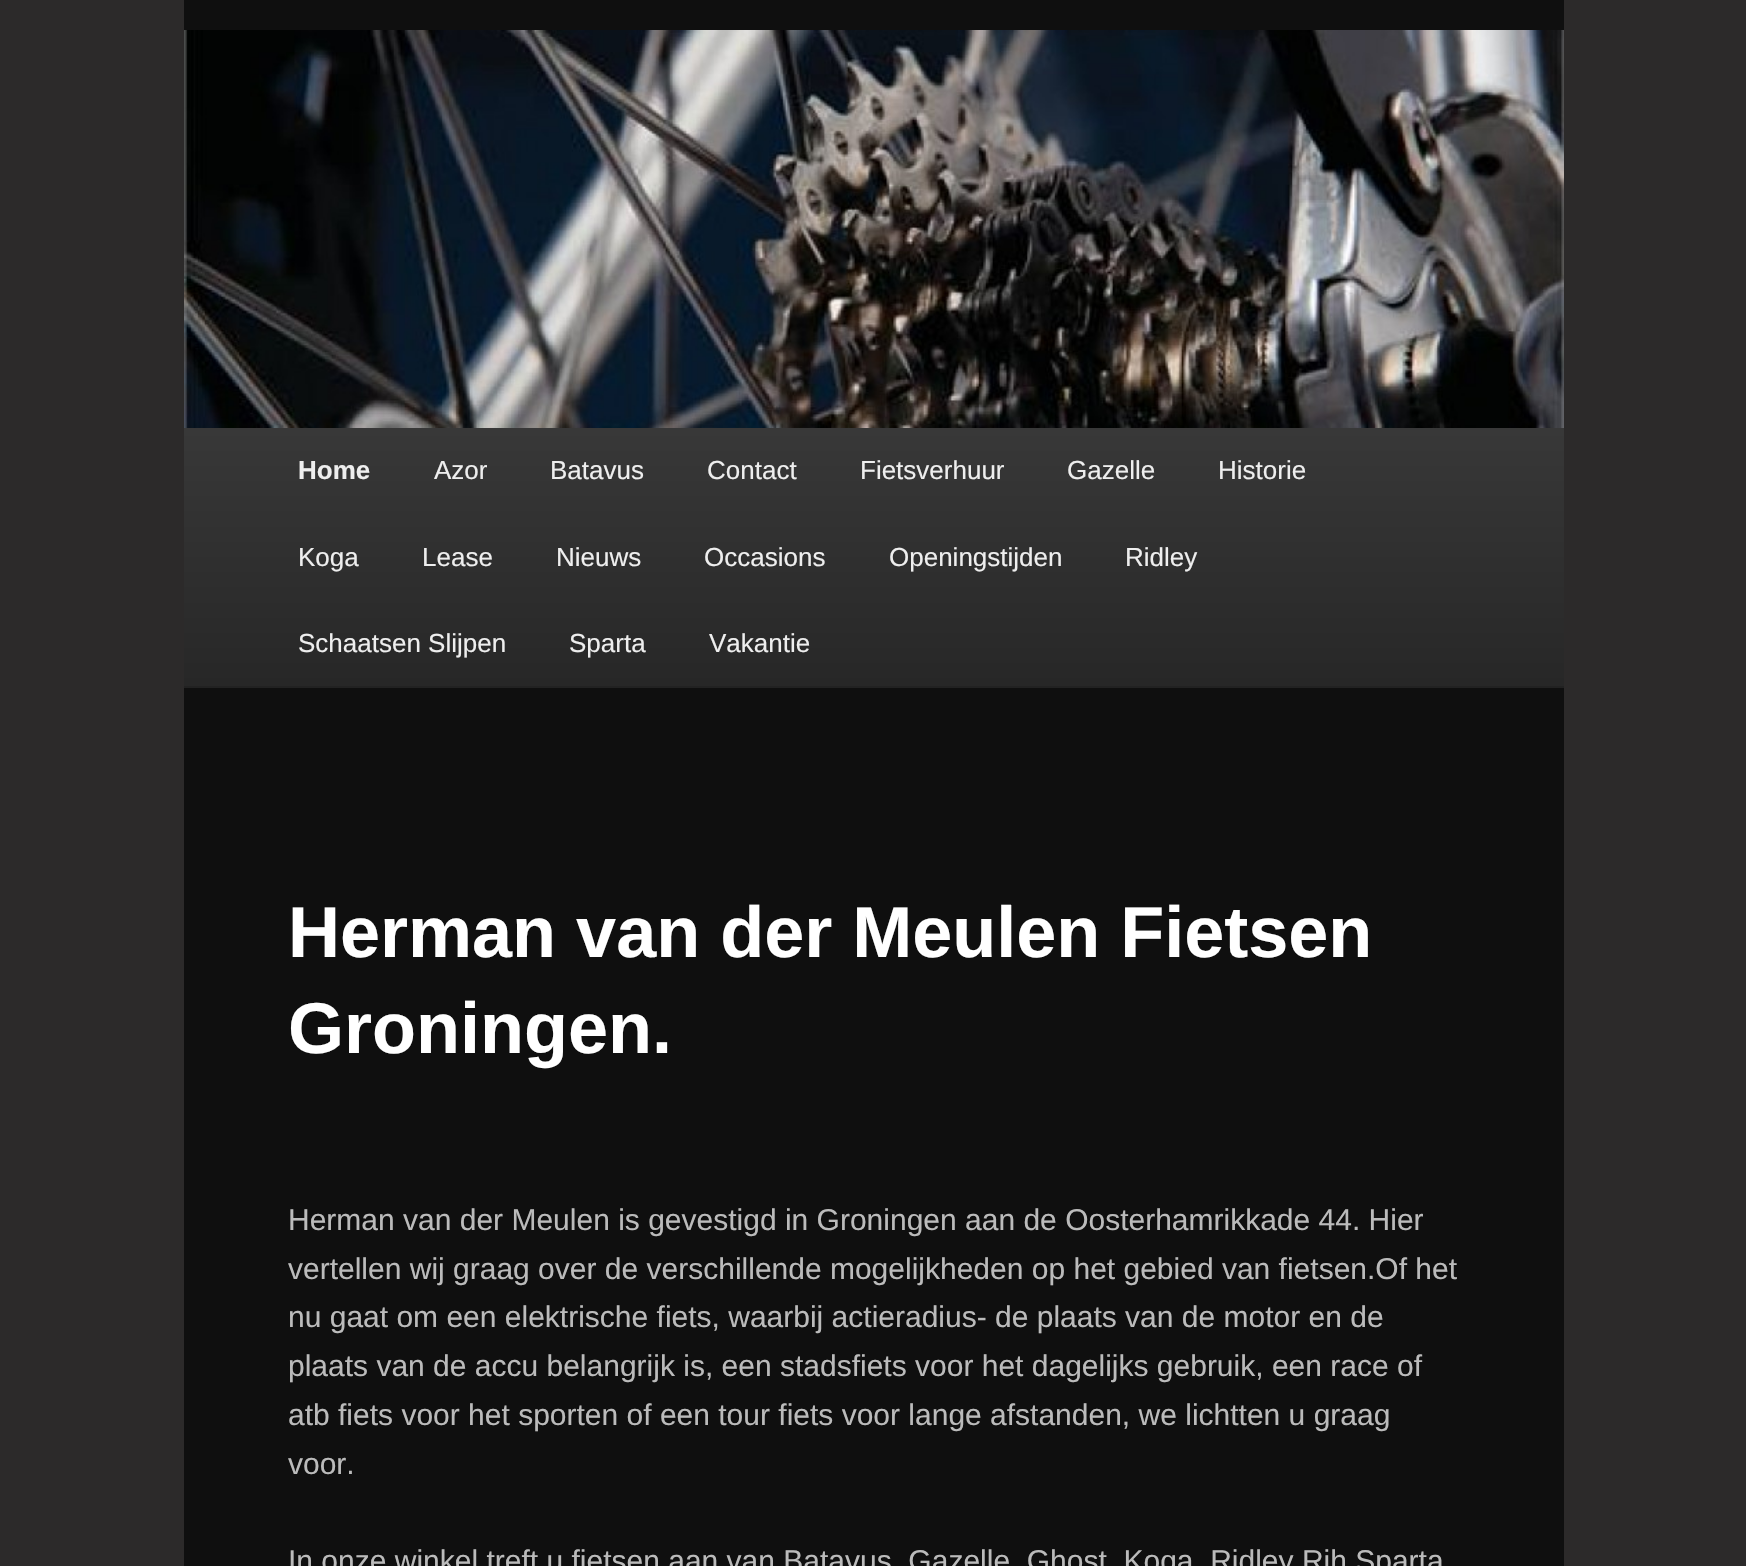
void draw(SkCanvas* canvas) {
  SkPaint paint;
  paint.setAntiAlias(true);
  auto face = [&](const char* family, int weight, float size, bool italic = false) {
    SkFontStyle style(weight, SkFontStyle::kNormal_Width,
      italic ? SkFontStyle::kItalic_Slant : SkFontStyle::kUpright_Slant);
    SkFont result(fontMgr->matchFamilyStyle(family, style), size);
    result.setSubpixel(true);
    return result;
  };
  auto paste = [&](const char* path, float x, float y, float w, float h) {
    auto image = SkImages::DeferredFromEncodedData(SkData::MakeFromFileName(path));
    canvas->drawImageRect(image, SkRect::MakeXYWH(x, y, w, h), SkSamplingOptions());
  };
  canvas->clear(0xff2c2a2a);
  paint.setColor(0xff0f0f0f);
  canvas->drawRect(SkRect::MakeXYWH(184, 0, 1380, 1566), paint);
  paste("img/1.png", 184, 30, 1380, 398);
  {
    const SkColor colors[] = {0xff383838, 0xff272727};
    const float stops[] = {0, 1};
    const SkPoint ends[] = {{874, 428}, {874, 686}};
    paint.setShader(SkGradientShader::MakeLinear(ends, colors, stops, 2, SkTileMode::kClamp));
    paint.setAlpha(255);
  }
  canvas->drawRect(SkRect::MakeXYWH(184, 428, 1380, 258), paint);
  paint.setShader(nullptr);
  paint.setColor(0xff222222);
  canvas->drawRect(SkRect::MakeXYWH(184, 686, 1380, 2), paint);
  auto f0 = face("Liberation Sans", 700, 26);
  paint.setColor(0xffeeeeee);
  canvas->drawString("Home", 298, 479, f0, paint);
  auto f1 = face("Liberation Sans", 400, 26);
  {
    const struct { const char* s; float x, y; } items[] = {
      {"Azor", 434, 479},
      {"Batavus", 550, 479},
      {"Contact", 707, 479},
      {"Fietsverhuur", 860, 479},
      {"Gazelle", 1067, 479},
      {"Historie", 1218, 479},
      {"Koga", 298, 566},
      {"Lease", 422, 566},
      {"Nieuws", 556, 566},
      {"Occasions", 704, 566},
      {"Openingstijden", 889, 566},
      {"Ridley", 1125, 566},
      {"Schaatsen Slijpen", 298, 652},
      {"Sparta", 569, 652},
      {"Vakantie", 709, 652},
    };
    for (auto [s, x, y] : items) {
      canvas->drawString(s, x, y, f1, paint);
    }
  }
  auto f2 = face("Liberation Sans", 700, 72);
  paint.setColor(0xffffffff);
  canvas->drawString("Herman van der Meulen Fietsen", 288, 957, f2, paint);
  canvas->drawString("Groningen.", 288, 1053, f2, paint);
  auto f3 = face("Liberation Sans", 400, 30);
  paint.setColor(0xffbbbbbb);
  {
    const struct { const char* s; float x, y; } items[] = {
      {"Herman van der Meulen is gevestigd in Groningen aan de Oosterhamrikkade 44. Hier", 288, 1230},
      {"vertellen wij graag over de verschillende mogelijkheden op het gebied van fietsen.Of het", 288, 1279},
      {"nu gaat om een elektrische fiets, waarbij actieradius- de plaats van de motor en de", 288, 1327},
      {"plaats van de accu belangrijk is, een stadsfiets voor het dagelijks gebruik, een race of", 288, 1376},
      {"atb fiets voor het sporten of een tour fiets voor lange afstanden, we lichtten u graag", 288, 1425},
      {"voor.", 288, 1474},
      {"In onze winkel treft u fietsen aan van Batavus, Gazelle, Ghost, Koga, Ridley,Rih,Sparta", 288, 1571},
    };
    for (auto [s, x, y] : items) {
      canvas->drawString(s, x, y, f3, paint);
    }
  }
}
